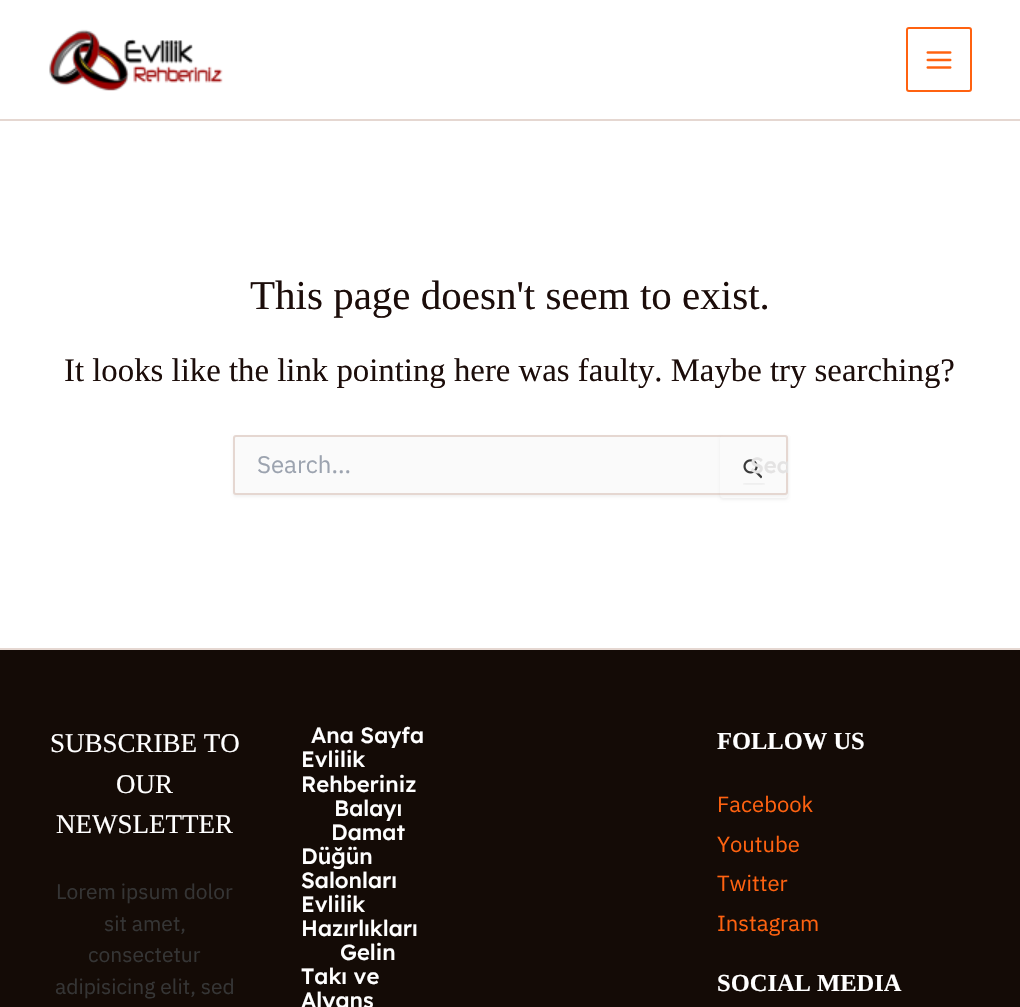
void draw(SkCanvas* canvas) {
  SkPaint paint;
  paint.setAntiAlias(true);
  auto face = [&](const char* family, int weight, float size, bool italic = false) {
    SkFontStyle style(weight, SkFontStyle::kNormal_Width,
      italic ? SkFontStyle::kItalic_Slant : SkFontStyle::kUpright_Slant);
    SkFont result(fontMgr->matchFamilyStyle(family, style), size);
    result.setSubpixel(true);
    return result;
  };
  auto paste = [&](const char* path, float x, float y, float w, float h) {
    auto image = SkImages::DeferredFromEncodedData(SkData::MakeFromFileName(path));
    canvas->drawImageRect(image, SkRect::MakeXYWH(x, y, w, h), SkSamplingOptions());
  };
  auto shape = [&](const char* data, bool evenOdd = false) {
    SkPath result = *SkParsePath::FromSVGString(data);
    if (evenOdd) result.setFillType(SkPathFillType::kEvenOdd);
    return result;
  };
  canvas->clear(0xffffffff);
  paint.setColor(0xffe5d7d1);
  canvas->drawRect(SkRect::MakeXYWH(0, 119, 1020, 2), paint);
  paste("img/1.png", 49, 29, 174, 62);
  paint.setStroke(true);
  paint.setStrokeWidth(2);
  paint.setColor(0xffff6210);
  canvas->drawRoundRect(SkRect::MakeXYWH(907, 28, 64, 63), 2, 2, paint);
  paste("img/2.png", 926, 51, 26, 18);
  paint.setStroke(false);
  paint.setColor(0x0d000000);
  paint.setMaskFilter(SkMaskFilter::MakeBlur(kNormal_SkBlurStyle, 1.5f));
  canvas->drawRoundRect(SkRect::MakeXYWH(233, 437, 555, 60), 3, 3, paint);
  paint.setMaskFilter(nullptr);
  paint.setColor(0xfffafafa);
  canvas->drawRoundRect(SkRect::MakeXYWH(234, 436, 553, 58), 2, 2, paint);
  paint.setStroke(true);
  paint.setColor(0xffe5d7d1);
  canvas->drawRoundRect(SkRect::MakeXYWH(234, 436, 553, 58), 2, 2, paint);
  canvas->save();
  canvas->clipRect(SkRect::MakeXYWH(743, 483, 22, 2));
  paint.setStroke(false);
  paint.setColor(0x0d000000);
  paint.setMaskFilter(SkMaskFilter::MakeBlur(kNormal_SkBlurStyle, 1.5f));
  canvas->drawRect(SkRect::MakeXYWH(743, 455, 22, 30), paint);
  paint.setMaskFilter(nullptr);
  canvas->restore();
  paste("img/3.png", 743, 459, 19, 20);
  canvas->save();
  canvas->clipPath(shape("M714 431H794V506H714ZM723 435H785C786.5 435 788 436.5 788 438V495C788 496.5 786.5 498 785 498H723C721.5 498 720 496.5 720 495V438C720 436.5 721.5 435 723 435Z", true), true);
  paint.setMaskFilter(SkMaskFilter::MakeBlur(kNormal_SkBlurStyle, 1.5f));
  canvas->drawRoundRect(SkRect::MakeXYWH(720, 437, 68, 63), 3, 3, paint);
  paint.setMaskFilter(nullptr);
  canvas->restore();
  paint.setColor(0xff140b06);
  canvas->drawRect(SkRect::MakeXYWH(0, 650, 1020, 357), paint);
  paint.setColor(0xffe5d7d1);
  canvas->drawRect(SkRect::MakeXYWH(0, 648, 1020, 2), paint);
  auto f0 = face("Liberation Serif", 400, 41);
  paint.setColor(0xff1c0d0a);
  canvas->drawString("This page doesn't seem to exist.", 250, 309, f0, paint);
  auto f1 = face("Liberation Serif", 400, 32.8f);
  canvas->drawString("It looks like the link pointing here was faulty. Maybe try searching?", 64, 381, f1, paint);
  auto f2 = face("IBM Plex Sans", 400, 24);
  paint.setColor(0xff9ca3af);
  canvas->drawString("Search...", 257, 473, f2, paint);
  canvas->save();
  canvas->clipPath(shape("M723 435H785C786.5 435 788 436.5 788 438V495C788 496.5 786.5 498 785 498H723C721.5 498 720 496.5 720 495V438C720 436.5 721.5 435 723 435Z"), true);
  auto f3 = face("Lexend", 500, 22);
  paint.setColor(0xffe4e3e3);
  canvas->drawString("Sea", 750, 473, f3, paint);
  canvas->restore();
  auto f4 = face("Liberation Serif", 400, 27);
  paint.setColor(0xffffffff);
  {
    const struct { const char* s; float x, y; } items[] = {
      {"SUBSCRIBE TO", 50, 752},
      {"OUR", 116, 793},
      {"NEWSLETTER", 56, 833},
    };
    for (auto [s, x, y] : items) {
      canvas->drawString(s, x, y, f4, paint);
    }
  }
  auto f5 = face("IBM Plex Sans", 400, 21);
  paint.setColor(0xff353535);
  {
    const struct { const char* s; float x, y; } items[] = {
      {"Lorem ipsum dolor", 56, 899},
      {"sit amet,", 104, 931},
      {"consectetur", 88, 962},
      {"adipisicing elit, sed", 55, 994},
    };
    for (auto [s, x, y] : items) {
      canvas->drawString(s, x, y, f5, paint);
    }
  }
  paint.setColor(0xffffffff);
  {
    const struct { const char* s; float x, y; } items[] = {
      {"Ana Sayfa", 311, 743},
      {"Evlilik", 301, 767},
      {"Rehberiniz", 301, 792},
      {"Balayı", 334, 816},
      {"Damat", 331, 840},
      {"Düğün", 301, 864},
      {"Salonları", 301, 888},
      {"Evlilik", 301, 912},
      {"Hazırlıkları", 301, 936},
      {"Gelin", 340, 960},
      {"Takı ve", 301, 984},
      {"Alyans", 301, 1008},
    };
    for (auto [s, x, y] : items) {
      canvas->drawString(s, x, y, f3, paint);
    }
  }
  auto f6 = face("Liberation Serif", 700, 24.5f);
  canvas->drawString("FOLLOW US", 717, 749, f6, paint);
  auto f7 = face("IBM Plex Sans", 400, 22);
  paint.setColor(0xffff6210);
  {
    const struct { const char* s; float x, y; } items[] = {
      {"Facebook", 717, 812},
      {"Youtube", 717, 852},
      {"Twitter", 717, 891},
      {"Instagram", 717, 931},
    };
    for (auto [s, x, y] : items) {
      canvas->drawString(s, x, y, f7, paint);
    }
  }
  paint.setColor(0xffffffff);
  canvas->drawString("SOCIAL MEDIA", 717, 991, f6, paint);
}
